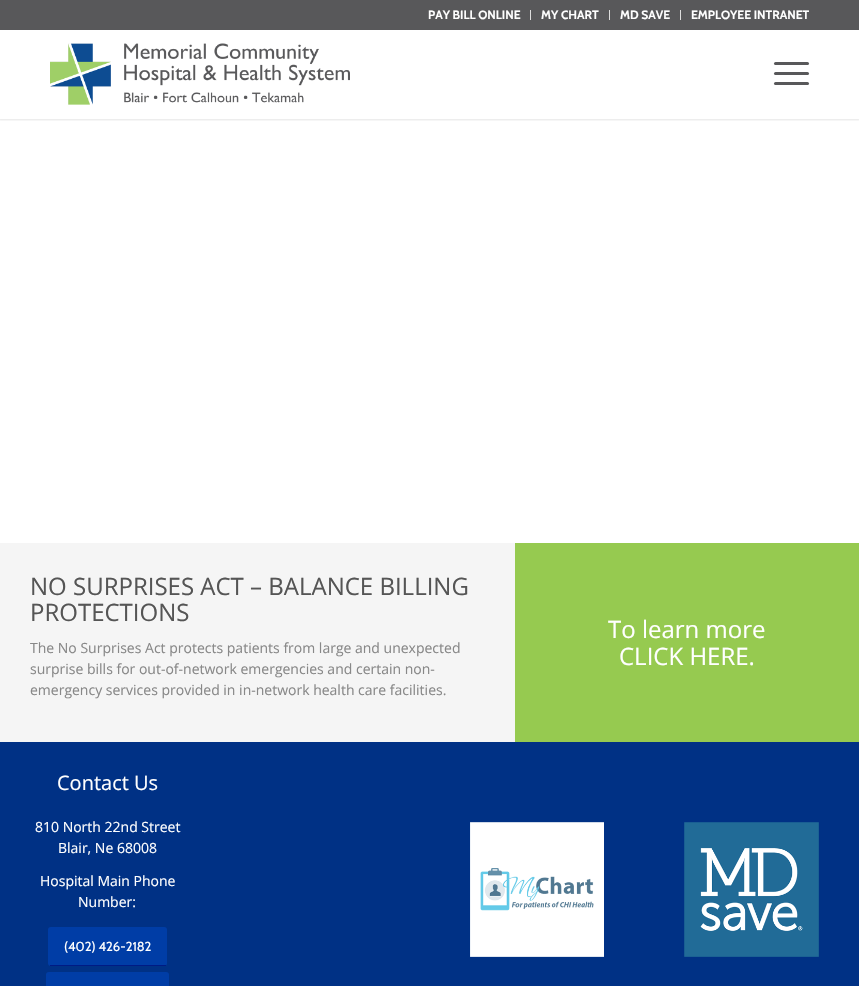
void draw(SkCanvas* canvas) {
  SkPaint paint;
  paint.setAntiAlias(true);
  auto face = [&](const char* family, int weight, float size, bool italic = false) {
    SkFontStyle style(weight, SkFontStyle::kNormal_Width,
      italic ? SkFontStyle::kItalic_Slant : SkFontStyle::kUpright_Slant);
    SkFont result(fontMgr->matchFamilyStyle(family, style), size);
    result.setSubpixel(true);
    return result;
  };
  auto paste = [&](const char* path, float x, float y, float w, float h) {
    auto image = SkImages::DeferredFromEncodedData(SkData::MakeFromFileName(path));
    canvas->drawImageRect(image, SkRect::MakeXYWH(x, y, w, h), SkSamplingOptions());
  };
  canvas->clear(0xffffffff);
  canvas->save();
  canvas->clipRect(SkRect::MakeXYWH(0, 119, 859, 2));
  paint.setColor(0x1a000000);
  paint.setMaskFilter(SkMaskFilter::MakeBlur(kNormal_SkBlurStyle, 1));
  canvas->drawRect(SkRect::MakeXYWH(-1, -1, 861, 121), paint);
  paint.setMaskFilter(nullptr);
  canvas->restore();
  {
    const struct { float x, y, w, h; SkColor color; } items[] = {
      {0, 0, 859, 30, 0xff58585a},
      {530, 10, 1, 10, 0xffdddddd},
      {609, 10, 1, 10, 0xffdddddd},
      {680, 10, 1, 10, 0xffdddddd},
    };
    for (auto [x, y, w, h, color] : items) {
      paint.setColor(color);
      canvas->drawRect(SkRect::MakeXYWH(x, y, w, h), paint);
    }
  }
  paste("img/1.png", 50, 43, 300, 62);
  paint.setColor(0xff58585a);
  canvas->drawRoundRect(SkRect::MakeXYWH(774, 72, 35, 3), 1.5f, 1.5f, paint);
  canvas->drawRoundRect(SkRect::MakeXYWH(774, 62, 35, 3), 1.5f, 1.5f, paint);
  canvas->drawRoundRect(SkRect::MakeXYWH(774, 82, 35, 3), 1.5f, 1.5f, paint);
  {
    const struct { float x, y, w, h; SkColor color; } items[] = {
      {0, 543, 515, 199, 0xfff5f5f5},
      {515, 543, 344, 199, 0xff96ca50},
      {0, 742, 859, 244, 0xff003185},
    };
    for (auto [x, y, w, h, color] : items) {
      paint.setColor(color);
      canvas->drawRect(SkRect::MakeXYWH(x, y, w, h), paint);
    }
  }
  paint.setColor(0xff003da6);
  canvas->drawRoundRect(SkRect::MakeXYWH(48, 927, 119, 39), 3, 3, paint);
  paint.setColor(0xff001b84);
  canvas->drawRect(SkRect::MakeXYWH(50, 965, 116, 1), paint);
  paint.setColor(0xff003da6);
  canvas->drawRoundRect(SkRect::MakeXYWH(46, 972, 123, 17), 3, 3, paint);
  paste("img/2.png", 470, 822, 134, 135);
  paste("img/3.png", 684, 822, 135, 135);
  auto f0 = face("Cabin", 700, 12);
  paint.setColor(0xffffffff);
  {
    const struct { const char* s; float x, y; } items[] = {
      {"PAY BILL ONLINE", 428, 19},
      {"MY CHART", 541, 19},
      {"MD SAVE", 620, 19},
      {"EMPLOYEE INTRANET", 691, 19},
    };
    for (auto [s, x, y] : items) {
      canvas->drawString(s, x, y, f0, paint);
    }
  }
  auto f1 = face("Open Sans", 400, 24);
  paint.setColor(0xff555555);
  canvas->drawString("NO SURPRISES ACT – BALANCE BILLING", 30, 595, f1, paint);
  canvas->drawString("PROTECTIONS", 30, 621, f1, paint);
  auto f2 = face("Open Sans", 400, 14);
  paint.setColor(0xff888888);
  {
    const struct { const char* s; float x, y; } items[] = {
      {"The No Surprises Act protects patients from large and unexpected", 30, 653},
      {"surprise bills for out-of-network emergencies and certain non-", 30, 674},
      {"emergency services provided in in-network health care facilities.", 30, 695},
    };
    for (auto [s, x, y] : items) {
      canvas->drawString(s, x, y, f2, paint);
    }
  }
  paint.setColor(0xffffffff);
  canvas->drawString("To learn more", 608, 638, f1, paint);
  canvas->drawString("CLICK HERE.", 619, 665, f1, paint);
  auto f3 = face("Open Sans", 400, 20);
  canvas->drawString("Contact Us", 57, 790, f3, paint);
  {
    const struct { const char* s; float x, y; } items[] = {
      {"810 North 22nd Street", 35, 832},
      {"Blair, Ne 68008", 58, 853},
      {"Hospital Main Phone", 40, 886},
      {"Number:", 78, 907},
    };
    for (auto [s, x, y] : items) {
      canvas->drawString(s, x, y, f2, paint);
    }
  }
  auto f4 = face("Cabin", 400, 13);
  canvas->drawString("(402) 426-2182", 64, 951, f4, paint);
}
